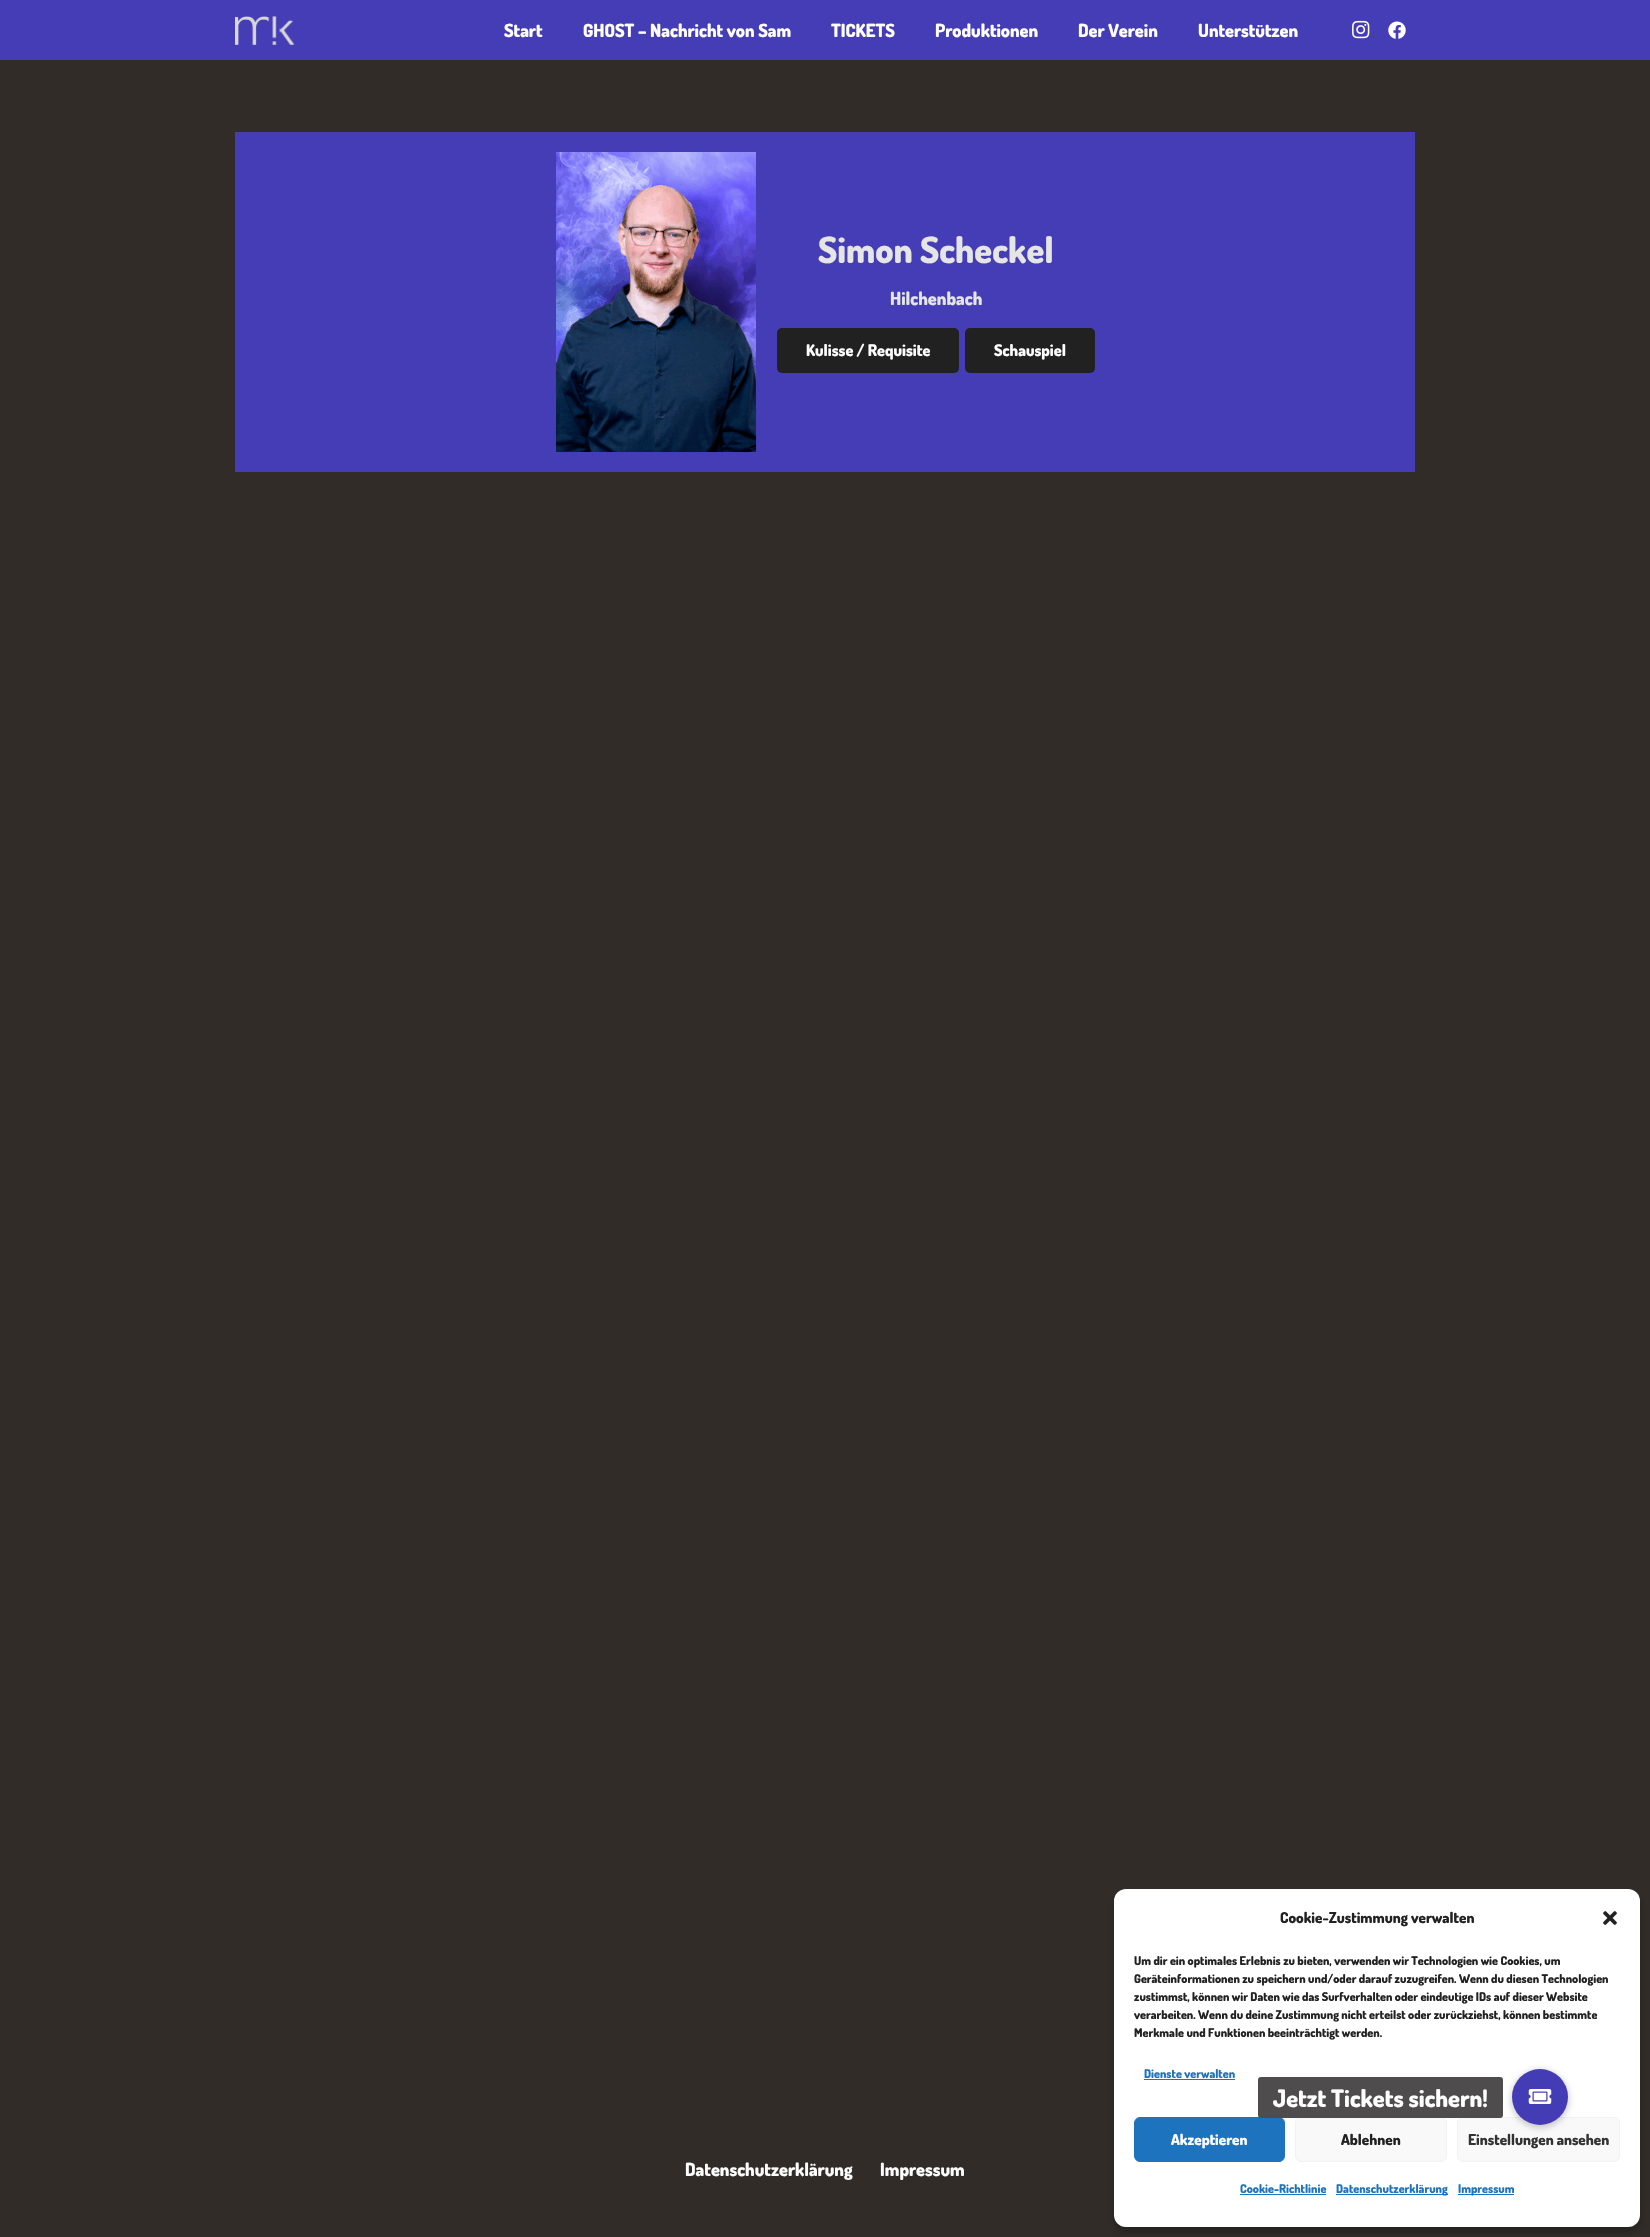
void draw(SkCanvas* canvas) {
  SkPaint paint;
  paint.setAntiAlias(true);
  auto face = [&](const char* family, int weight, float size, bool italic = false) {
    SkFontStyle style(weight, SkFontStyle::kNormal_Width,
      italic ? SkFontStyle::kItalic_Slant : SkFontStyle::kUpright_Slant);
    SkFont result(fontMgr->matchFamilyStyle(family, style), size);
    result.setSubpixel(true);
    return result;
  };
  auto paste = [&](const char* path, float x, float y, float w, float h) {
    auto image = SkImages::DeferredFromEncodedData(SkData::MakeFromFileName(path));
    canvas->drawImageRect(image, SkRect::MakeXYWH(x, y, w, h), SkSamplingOptions());
  };
  canvas->clear(0xff312c28);
  paint.setColor(0xff453db5);
  canvas->drawRect(SkRect::MakeXYWH(0, 0, 1650, 60), paint);
  paste("img/1.png", 235, 16, 60, 29);
  paste("img/2.png", 1352, 20, 18, 19);
  paste("img/3.png", 1388, 21, 18, 18);
  canvas->drawRect(SkRect::MakeXYWH(235, 132, 1180, 340), paint);
  paste("img/4.png", 556, 152, 200, 300);
  paint.setColor(0xff212121);
  canvas->drawRoundRect(SkRect::MakeXYWH(777, 328, 182, 45), 5, 5, paint);
  canvas->drawRoundRect(SkRect::MakeXYWH(965, 328, 130, 45), 5, 5, paint);
  paint.setColor(0x3b000000);
  paint.setMaskFilter(SkMaskFilter::MakeBlur(kNormal_SkBlurStyle, 3));
  canvas->drawRoundRect(SkRect::MakeXYWH(1114, 1895, 526, 338), 12, 12, paint);
  paint.setMaskFilter(nullptr);
  paint.setColor(0xffffffff);
  canvas->drawRoundRect(SkRect::MakeXYWH(1114, 1889, 526, 338), 12, 12, paint);
  paste("img/5.png", 1603, 1911, 14, 14);
  paint.setColor(0xff1e73be);
  canvas->drawRect(SkRect::MakeXYWH(1144, 2079, 91, 1), paint);
  canvas->drawRoundRect(SkRect::MakeXYWH(1134.5f, 2117.5f, 150, 44), 5.5f, 5.5f, paint);
  paint.setStroke(true);
  paint.setStrokeWidth(1);
  canvas->drawRoundRect(SkRect::MakeXYWH(1134.5f, 2117.5f, 150, 44), 5.5f, 5.5f, paint);
  paint.setStroke(false);
  paint.setColor(0xfff9f9f9);
  canvas->drawRoundRect(SkRect::MakeXYWH(1295.5f, 2117.5f, 151, 44), 5.5f, 5.5f, paint);
  paint.setStroke(true);
  paint.setColor(0xfff2f2f2);
  canvas->drawRoundRect(SkRect::MakeXYWH(1295.5f, 2117.5f, 151, 44), 5.5f, 5.5f, paint);
  paint.setStroke(false);
  paint.setColor(0xfff9f9f9);
  canvas->drawRoundRect(SkRect::MakeXYWH(1457.5f, 2117.5f, 162, 44), 5.5f, 5.5f, paint);
  paint.setStroke(true);
  paint.setColor(0xfff2f2f2);
  canvas->drawRoundRect(SkRect::MakeXYWH(1457.5f, 2117.5f, 162, 44), 5.5f, 5.5f, paint);
  paint.setStroke(false);
  {
    const struct { float x, y, w, h; SkColor color; } items[] = {
      {1240, 2194, 86, 1, 0xff1e73be},
      {1336, 2194, 112, 1, 0xff1e73be},
      {1458, 2194, 56, 1, 0xff1e73be},
    };
    for (auto [x, y, w, h, color] : items) {
      paint.setColor(color);
      canvas->drawRect(SkRect::MakeXYWH(x, y, w, h), paint);
    }
  }
  paint.setColor(0x33000000);
  paint.setMaskFilter(SkMaskFilter::MakeBlur(kNormal_SkBlurStyle, 3));
  canvas->drawRoundRect(SkRect::MakeXYWH(1511, 2070, 58, 58), 29, 29, paint);
  paint.setMaskFilter(nullptr);
  paint.setColor(0xff443cb4);
  canvas->drawCircle(1540, 2097, 28, paint);
  paint.setColor(0xff4e4c4c);
  canvas->drawRoundRect(SkRect::MakeXYWH(1258, 2077, 245, 41), 3, 3, paint);
  paste("img/6.png", 1528, 2089, 24, 15);
  auto f0 = face("Dosis", 800, 18);
  paint.setColor(0xffffffff);
  {
    const struct { const char* s; float x, y; } items[] = {
      {"Start", 504, 37},
      {"GHOST – Nachricht von Sam", 583, 37},
      {"TICKETS", 831, 37},
      {"Produktionen", 935, 37},
      {"Der Verein", 1078, 37},
      {"Unterstützen", 1198, 37},
    };
    for (auto [s, x, y] : items) {
      canvas->drawString(s, x, y, f0, paint);
    }
  }
  auto f1 = face("Dosis", 800, 36);
  paint.setColor(0xffe5e5e5);
  canvas->drawString("Simon Scheckel", 818, 263, f1, paint);
  canvas->drawString("Hilchenbach", 890, 305, f0, paint);
  auto f2 = face("Dosis", 800, 16);
  paint.setColor(0xffffffff);
  canvas->drawString("Kulisse / Requisite", 806, 356, f2, paint);
  canvas->drawString("Schauspiel", 994, 356, f2, paint);
  auto f3 = face("Dosis", 800, 15);
  paint.setColor(0xff222222);
  canvas->drawString("Cookie-Zustimmung verwalten", 1280, 1923, f3, paint);
  auto f4 = face("Dosis", 800, 12);
  {
    const struct { const char* s; float x, y; } items[] = {
      {"Um dir ein optimales Erlebnis zu bieten, verwenden wir Technologien wie Cookies, um", 1134, 1965},
      {"Geräteinformationen zu speichern und/oder darauf zuzugreifen. Wenn du diesen Technologien", 1134, 1983},
      {"zustimmst, können wir Daten wie das Surfverhalten oder eindeutige IDs auf dieser Website", 1134, 2001},
      {"verarbeiten. Wenn du deine Zustimmung nicht erteilst oder zurückziehst, können bestimmte", 1134, 2019},
      {"Merkmale und Funktionen beeinträchtigt werden.", 1134, 2037},
    };
    for (auto [s, x, y] : items) {
      canvas->drawString(s, x, y, f4, paint);
    }
  }
  paint.setColor(0xff1e73be);
  canvas->drawString("Dienste verwalten", 1144, 2078, f4, paint);
  paint.setColor(0xffffffff);
  canvas->drawString("Akzeptieren", 1171, 2145, f3, paint);
  paint.setColor(0xff222222);
  canvas->drawString("Ablehnen", 1341, 2145, f3, paint);
  paint.setColor(0xff333333);
  canvas->drawString("Einstellungen ansehen", 1468, 2145, f3, paint);
  paint.setColor(0xff1e73be);
  {
    const struct { const char* s; float x, y; } items[] = {
      {"Cookie-Richtlinie", 1240, 2193},
      {"Datenschutzerklärung", 1336, 2193},
      {"Impressum", 1458, 2193},
    };
    for (auto [s, x, y] : items) {
      canvas->drawString(s, x, y, f4, paint);
    }
  }
  auto f5 = face("Dosis", 800, 24);
  paint.setColor(0xffffffff);
  canvas->drawString("Jetzt Tickets sichern!", 1273, 2107, f5, paint);
  canvas->drawString("Datenschutzerklärung", 685, 2176, f0, paint);
  canvas->drawString("Impressum", 880, 2176, f0, paint);
}
